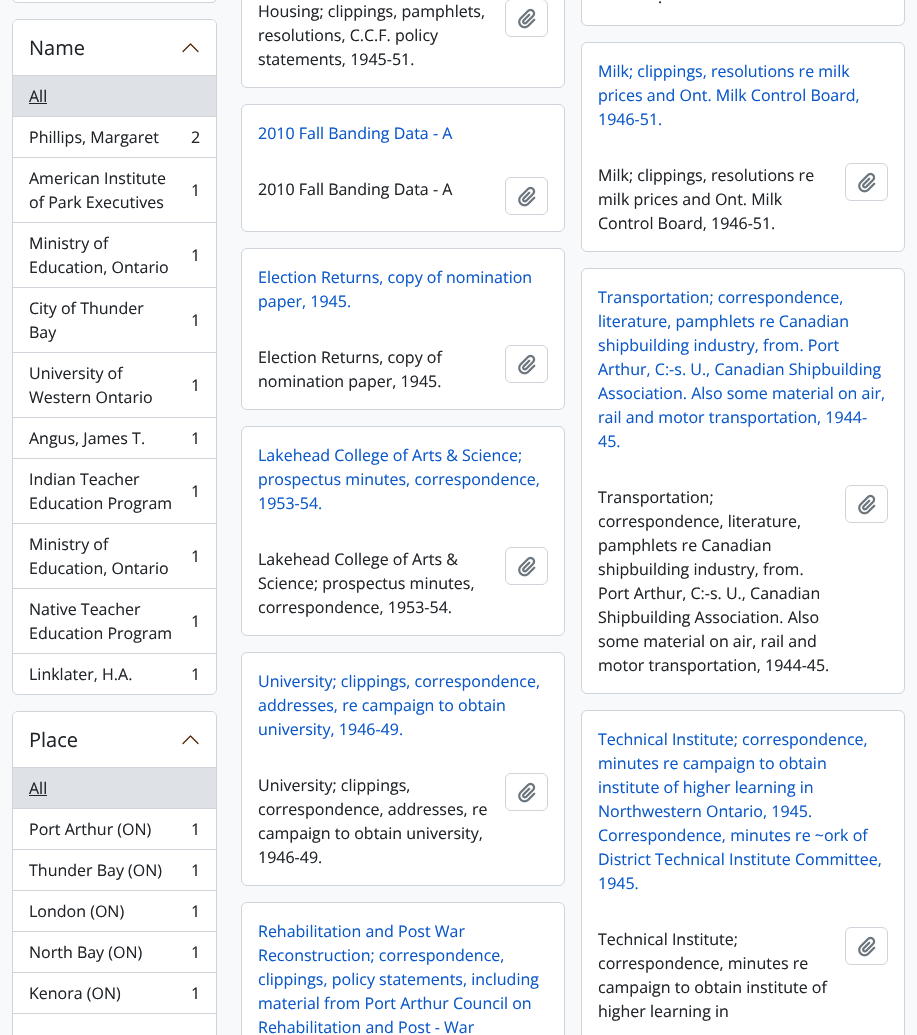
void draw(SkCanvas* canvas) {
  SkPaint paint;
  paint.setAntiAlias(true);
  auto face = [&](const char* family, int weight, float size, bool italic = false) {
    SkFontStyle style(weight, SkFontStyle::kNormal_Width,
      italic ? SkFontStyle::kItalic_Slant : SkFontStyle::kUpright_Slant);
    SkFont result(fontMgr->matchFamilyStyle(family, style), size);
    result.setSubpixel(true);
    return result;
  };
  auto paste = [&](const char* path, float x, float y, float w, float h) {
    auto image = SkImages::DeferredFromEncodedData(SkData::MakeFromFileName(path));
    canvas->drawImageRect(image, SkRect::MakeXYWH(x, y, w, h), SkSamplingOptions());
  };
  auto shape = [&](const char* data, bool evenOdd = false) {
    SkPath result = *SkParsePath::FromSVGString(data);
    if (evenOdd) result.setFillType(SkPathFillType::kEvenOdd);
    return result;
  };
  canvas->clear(0xfff8f9fa);
  paint.setColor(0xffffffff);
  canvas->drawRoundRect(SkRect::MakeXYWH(12.5f, -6.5f, 204, 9), 5.5f, 5.5f, paint);
  paint.setStroke(true);
  paint.setStrokeWidth(1);
  paint.setColor(0xffced4da);
  canvas->drawRoundRect(SkRect::MakeXYWH(12.5f, -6.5f, 204, 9), 5.5f, 5.5f, paint);
  paint.setStroke(false);
  paint.setColor(0xffffffff);
  canvas->drawPath(shape("M13-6H216V-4C216-.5 213.5 2 210 2H19C15.5 2 13-.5 13-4Z"), paint);
  canvas->drawRoundRect(SkRect::MakeXYWH(12.5f, 19.5f, 204, 675), 5.5f, 5.5f, paint);
  paint.setStroke(true);
  paint.setColor(0xffced4da);
  canvas->drawRoundRect(SkRect::MakeXYWH(12.5f, 19.5f, 204, 675), 5.5f, 5.5f, paint);
  paint.setStroke(false);
  paint.setColor(0xffffffff);
  canvas->drawPath(shape("M18 20H211C214 20 216 22 216 25V76H13V25C13 22 15 20 18 20Z"), paint);
  paint.setColor(0xffced4da);
  canvas->drawRect(SkRect::MakeXYWH(13, 75, 203, 1), paint);
  paint.setStroke(true);
  paint.setStrokeWidth(1.2f);
  paint.setStrokeCap(SkPaint::kRound_Cap);
  paint.setStrokeJoin(SkPaint::kRound_Join);
  paint.setColor(0xff4e1f00);
  canvas->drawPath(shape("M198 51.5L190.5 44L183 51.5"), paint);
  paint.setStroke(false);
  {
    const struct { float x, y, w, h; SkColor color; } items[] = {
      {13, 76, 203, 40, 0xffdee2e6},
      {13, 116, 203, 1, 0xffced4da},
      {29, 103, 18, 1, 0xff212529},
      {13, 157, 203, 1, 0xffced4da},
      {13, 222, 203, 1, 0xffced4da},
      {13, 287, 203, 1, 0xffced4da},
      {13, 352, 203, 1, 0xffced4da},
      {13, 417, 203, 1, 0xffced4da},
      {13, 458, 203, 1, 0xffced4da},
      {13, 523, 203, 1, 0xffced4da},
      {13, 588, 203, 1, 0xffced4da},
      {13, 653, 203, 1, 0xffced4da},
    };
    for (auto [x, y, w, h, color] : items) {
      paint.setColor(color);
      canvas->drawRect(SkRect::MakeXYWH(x, y, w, h), paint);
    }
  }
  paint.setColor(0xffffffff);
  canvas->drawPath(shape("M13 654H216V688C216 691.5 213.5 694 210 694H19C15.5 694 13 691.5 13 688Z"), paint);
  canvas->drawRoundRect(SkRect::MakeXYWH(12.5f, 711.5f, 204, 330), 5.5f, 5.5f, paint);
  paint.setStroke(true);
  paint.setStrokeWidth(1);
  paint.setStrokeCap(SkPaint::kButt_Cap);
  paint.setStrokeJoin(SkPaint::kMiter_Join);
  paint.setColor(0xffced4da);
  canvas->drawRoundRect(SkRect::MakeXYWH(12.5f, 711.5f, 204, 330), 5.5f, 5.5f, paint);
  paint.setStroke(false);
  paint.setColor(0xffffffff);
  canvas->drawPath(shape("M18 712H211C214 712 216 714 216 717V768H13V717C13 714 15 712 18 712Z"), paint);
  paint.setColor(0xffced4da);
  canvas->drawRect(SkRect::MakeXYWH(13, 767, 203, 1), paint);
  paint.setStroke(true);
  paint.setStrokeWidth(1.2f);
  paint.setStrokeCap(SkPaint::kRound_Cap);
  paint.setStrokeJoin(SkPaint::kRound_Join);
  paint.setColor(0xff4e1f00);
  canvas->drawPath(shape("M198 743.5L190.5 736L183 743.5"), paint);
  paint.setStroke(false);
  {
    const struct { float x, y, w, h; SkColor color; } items[] = {
      {13, 768, 203, 40, 0xffdee2e6},
      {13, 808, 203, 1, 0xffced4da},
      {29, 795, 18, 1, 0xff212529},
      {13, 849, 203, 1, 0xffced4da},
      {13, 890, 203, 1, 0xffced4da},
      {13, 931, 203, 1, 0xffced4da},
      {13, 972, 203, 1, 0xffced4da},
      {13, 1013, 203, 1, 0xffced4da},
    };
    for (auto [x, y, w, h, color] : items) {
      paint.setColor(color);
      canvas->drawRect(SkRect::MakeXYWH(x, y, w, h), paint);
    }
  }
  paint.setColor(0xffffffff);
  canvas->drawRoundRect(SkRect::MakeXYWH(581.5f, -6.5f, 323, 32), 5.5f, 5.5f, paint);
  paint.setStroke(true);
  paint.setStrokeWidth(1);
  paint.setStrokeCap(SkPaint::kButt_Cap);
  paint.setStrokeJoin(SkPaint::kMiter_Join);
  paint.setColor(0xffced4da);
  canvas->drawRoundRect(SkRect::MakeXYWH(581.5f, -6.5f, 323, 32), 5.5f, 5.5f, paint);
  paint.setStroke(false);
  paint.setColor(0xffffffff);
  canvas->drawRoundRect(SkRect::MakeXYWH(241.5f, -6.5f, 323, 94), 5.5f, 5.5f, paint);
  paint.setStroke(true);
  paint.setColor(0xffced4da);
  canvas->drawRoundRect(SkRect::MakeXYWH(241.5f, -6.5f, 323, 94), 5.5f, 5.5f, paint);
  canvas->drawRoundRect(SkRect::MakeXYWH(505.5f, -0.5f, 42, 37), 5.5f, 5.5f, paint);
  paste("img/1.png", 518, 8, 18, 21);
  paint.setStroke(false);
  paint.setColor(0xffffffff);
  canvas->drawRoundRect(SkRect::MakeXYWH(241.5f, 104.5f, 323, 127), 5.5f, 5.5f, paint);
  paint.setStroke(true);
  paint.setColor(0xffced4da);
  canvas->drawRoundRect(SkRect::MakeXYWH(241.5f, 104.5f, 323, 127), 5.5f, 5.5f, paint);
  canvas->drawRoundRect(SkRect::MakeXYWH(505.5f, 177.5f, 42, 37), 5.5f, 5.5f, paint);
  paste("img/1.png", 518, 186, 18, 21);
  paint.setStroke(false);
  paint.setColor(0xffffffff);
  canvas->drawRoundRect(SkRect::MakeXYWH(581.5f, 42.5f, 323, 209), 5.5f, 5.5f, paint);
  paint.setStroke(true);
  paint.setColor(0xffced4da);
  canvas->drawRoundRect(SkRect::MakeXYWH(581.5f, 42.5f, 323, 209), 5.5f, 5.5f, paint);
  canvas->drawRoundRect(SkRect::MakeXYWH(845.5f, 163.5f, 42, 37), 5.5f, 5.5f, paint);
  paste("img/1.png", 858, 172, 18, 21);
  paint.setStroke(false);
  paint.setColor(0xffffffff);
  canvas->drawRoundRect(SkRect::MakeXYWH(241.5f, 248.5f, 323, 161), 5.5f, 5.5f, paint);
  paint.setStroke(true);
  paint.setColor(0xffced4da);
  canvas->drawRoundRect(SkRect::MakeXYWH(241.5f, 248.5f, 323, 161), 5.5f, 5.5f, paint);
  canvas->drawRoundRect(SkRect::MakeXYWH(505.5f, 345.5f, 42, 37), 5.5f, 5.5f, paint);
  paste("img/1.png", 518, 354, 18, 21);
  paint.setStroke(false);
  paint.setColor(0xffffffff);
  canvas->drawRoundRect(SkRect::MakeXYWH(581.5f, 268.5f, 323, 425), 5.5f, 5.5f, paint);
  paint.setStroke(true);
  paint.setColor(0xffced4da);
  canvas->drawRoundRect(SkRect::MakeXYWH(581.5f, 268.5f, 323, 425), 5.5f, 5.5f, paint);
  canvas->drawRoundRect(SkRect::MakeXYWH(845.5f, 485.5f, 42, 37), 5.5f, 5.5f, paint);
  paste("img/1.png", 858, 494, 18, 21);
  paint.setStroke(false);
  paint.setColor(0xffffffff);
  canvas->drawRoundRect(SkRect::MakeXYWH(241.5f, 426.5f, 323, 209), 5.5f, 5.5f, paint);
  paint.setStroke(true);
  paint.setColor(0xffced4da);
  canvas->drawRoundRect(SkRect::MakeXYWH(241.5f, 426.5f, 323, 209), 5.5f, 5.5f, paint);
  canvas->drawRoundRect(SkRect::MakeXYWH(505.5f, 547.5f, 42, 37), 5.5f, 5.5f, paint);
  paste("img/1.png", 518, 556, 18, 21);
  paint.setStroke(false);
  paint.setColor(0xffffffff);
  canvas->drawRoundRect(SkRect::MakeXYWH(241.5f, 652.5f, 323, 233), 5.5f, 5.5f, paint);
  paint.setStroke(true);
  paint.setColor(0xffced4da);
  canvas->drawRoundRect(SkRect::MakeXYWH(241.5f, 652.5f, 323, 233), 5.5f, 5.5f, paint);
  canvas->drawRoundRect(SkRect::MakeXYWH(505.5f, 773.5f, 42, 37), 5.5f, 5.5f, paint);
  paste("img/1.png", 518, 782, 18, 21);
  paint.setStroke(false);
  paint.setColor(0xffffffff);
  canvas->drawRoundRect(SkRect::MakeXYWH(581.5f, 710.5f, 323, 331), 5.5f, 5.5f, paint);
  paint.setStroke(true);
  paint.setColor(0xffced4da);
  canvas->drawRoundRect(SkRect::MakeXYWH(581.5f, 710.5f, 323, 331), 5.5f, 5.5f, paint);
  canvas->drawRoundRect(SkRect::MakeXYWH(845.5f, 927.5f, 42, 37), 5.5f, 5.5f, paint);
  paste("img/1.png", 858, 936, 18, 21);
  paint.setStroke(false);
  paint.setColor(0xffffffff);
  canvas->drawRoundRect(SkRect::MakeXYWH(241.5f, 902.5f, 323, 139), 5.5f, 5.5f, paint);
  paint.setStroke(true);
  paint.setColor(0xffced4da);
  canvas->drawRoundRect(SkRect::MakeXYWH(241.5f, 902.5f, 323, 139), 5.5f, 5.5f, paint);
  auto f0 = face("Open Sans", 400, 20);
  paint.setStroke(false);
  paint.setColor(0xff212529);
  canvas->drawString("Name", 29, 55, f0, paint);
  auto f1 = face("Open Sans", 400, 16);
  {
    const struct { const char* s; float x, y; } items[] = {
      {"All", 29, 102},
      {"Phillips, Margaret", 29, 143},
      {"2", 191, 143},
      {"American Institute", 29, 184},
      {"1", 191, 196},
      {"of Park Executives", 29, 208},
      {"Ministry of", 29, 249},
      {"1", 191, 261},
      {"Education, Ontario", 29, 273},
      {"City of Thunder", 29, 314},
      {"1", 191, 326},
      {"Bay", 29, 338},
      {"University of", 29, 379},
      {"1", 191, 391},
      {"Western Ontario", 29, 403},
      {"Angus, James T.", 29, 444},
      {"1", 191, 444},
      {"Indian Teacher", 29, 485},
      {"1", 191, 497},
      {"Education Program", 29, 509},
      {"Ministry of", 29, 550},
      {"1", 191, 562},
      {"Education, Ontario", 29, 574},
      {"Native Teacher", 29, 615},
      {"1", 191, 627},
      {"Education Program", 29, 639},
      {"Linklater, H.A.", 29, 680},
      {"1", 191, 680},
    };
    for (auto [s, x, y] : items) {
      canvas->drawString(s, x, y, f1, paint);
    }
  }
  canvas->drawString("Place", 29, 747, f0, paint);
  {
    const struct { const char* s; float x, y; } items[] = {
      {"All", 29, 794},
      {"Port Arthur (ON)", 29, 835},
      {"1", 191, 835},
      {"Thunder Bay (ON)", 29, 876},
      {"1", 191, 876},
      {"London (ON)", 29, 917},
      {"1", 191, 917},
      {"North Bay (ON)", 29, 958},
      {"1", 191, 958},
      {"Kenora (ON)", 29, 999},
      {"1", 191, 999},
      {".", 658, 3},
      {"Housing; clippings, pamphlets,", 258, 17},
      {"resolutions, C.C.F. policy", 258, 41},
      {"statements, 1945-51.", 258, 65},
    };
    for (auto [s, x, y] : items) {
      canvas->drawString(s, x, y, f1, paint);
    }
  }
  paint.setColor(0xff0a58ca);
  canvas->drawString("2010 Fall Banding Data - A", 258, 139, f1, paint);
  paint.setColor(0xff212529);
  canvas->drawString("2010 Fall Banding Data - A", 258, 195, f1, paint);
  paint.setColor(0xff0a58ca);
  {
    const struct { const char* s; float x, y; } items[] = {
      {"Milk; clippings, resolutions re milk", 598, 77},
      {"prices and Ont. Milk Control Board,", 598, 101},
      {"1946-51.", 598, 125},
    };
    for (auto [s, x, y] : items) {
      canvas->drawString(s, x, y, f1, paint);
    }
  }
  paint.setColor(0xff212529);
  {
    const struct { const char* s; float x, y; } items[] = {
      {"Milk; clippings, resolutions re", 598, 181},
      {"milk prices and Ont. Milk", 598, 205},
      {"Control Board, 1946-51.", 598, 229},
    };
    for (auto [s, x, y] : items) {
      canvas->drawString(s, x, y, f1, paint);
    }
  }
  paint.setColor(0xff0a58ca);
  canvas->drawString("Election Returns, copy of nomination", 258, 283, f1, paint);
  canvas->drawString("paper, 1945.", 258, 307, f1, paint);
  paint.setColor(0xff212529);
  canvas->drawString("Election Returns, copy of", 258, 363, f1, paint);
  canvas->drawString("nomination paper, 1945.", 258, 387, f1, paint);
  paint.setColor(0xff0a58ca);
  {
    const struct { const char* s; float x, y; } items[] = {
      {"Transportation; correspondence,", 598, 303},
      {"literature, pamphlets re Canadian", 598, 327},
      {"shipbuilding industry, from. Port", 598, 351},
      {"Arthur, C:-s. U., Canadian Shipbuilding", 598, 375},
      {"Association. Also some material on air,", 598, 399},
      {"rail and motor transportation, 1944-", 598, 423},
      {"45.", 598, 447},
    };
    for (auto [s, x, y] : items) {
      canvas->drawString(s, x, y, f1, paint);
    }
  }
  paint.setColor(0xff212529);
  {
    const struct { const char* s; float x, y; } items[] = {
      {"Transportation;", 598, 503},
      {"correspondence, literature,", 598, 527},
      {"pamphlets re Canadian", 598, 551},
      {"shipbuilding industry, from.", 598, 575},
      {"Port Arthur, C:-s. U., Canadian", 598, 599},
      {"Shipbuilding Association. Also", 598, 623},
      {"some material on air, rail and", 598, 647},
      {"motor transportation, 1944-45.", 598, 671},
    };
    for (auto [s, x, y] : items) {
      canvas->drawString(s, x, y, f1, paint);
    }
  }
  paint.setColor(0xff0a58ca);
  {
    const struct { const char* s; float x, y; } items[] = {
      {"Lakehead College of Arts & Science;", 258, 461},
      {"prospectus minutes, correspondence,", 258, 485},
      {"1953-54.", 258, 509},
    };
    for (auto [s, x, y] : items) {
      canvas->drawString(s, x, y, f1, paint);
    }
  }
  paint.setColor(0xff212529);
  {
    const struct { const char* s; float x, y; } items[] = {
      {"Lakehead College of Arts &", 258, 565},
      {"Science; prospectus minutes,", 258, 589},
      {"correspondence, 1953-54.", 258, 613},
    };
    for (auto [s, x, y] : items) {
      canvas->drawString(s, x, y, f1, paint);
    }
  }
  paint.setColor(0xff0a58ca);
  {
    const struct { const char* s; float x, y; } items[] = {
      {"University; clippings, correspondence,", 258, 687},
      {"addresses, re campaign to obtain", 258, 711},
      {"university, 1946-49.", 258, 735},
    };
    for (auto [s, x, y] : items) {
      canvas->drawString(s, x, y, f1, paint);
    }
  }
  paint.setColor(0xff212529);
  {
    const struct { const char* s; float x, y; } items[] = {
      {"University; clippings,", 258, 791},
      {"correspondence, addresses, re", 258, 815},
      {"campaign to obtain university,", 258, 839},
      {"1946-49.", 258, 863},
    };
    for (auto [s, x, y] : items) {
      canvas->drawString(s, x, y, f1, paint);
    }
  }
  paint.setColor(0xff0a58ca);
  {
    const struct { const char* s; float x, y; } items[] = {
      {"Technical Institute; correspondence,", 598, 745},
      {"minutes re campaign to obtain", 598, 769},
      {"institute of higher learning in", 598, 793},
      {"Northwestern Ontario, 1945.", 598, 817},
      {"Correspondence, minutes re ~ork of", 598, 841},
      {"District Technical Institute Committee,", 598, 865},
      {"1945.", 598, 889},
    };
    for (auto [s, x, y] : items) {
      canvas->drawString(s, x, y, f1, paint);
    }
  }
  paint.setColor(0xff212529);
  {
    const struct { const char* s; float x, y; } items[] = {
      {"Technical Institute;", 598, 945},
      {"correspondence, minutes re", 598, 969},
      {"campaign to obtain institute of", 598, 993},
      {"higher learning in", 598, 1017},
    };
    for (auto [s, x, y] : items) {
      canvas->drawString(s, x, y, f1, paint);
    }
  }
  paint.setColor(0xff0a58ca);
  {
    const struct { const char* s; float x, y; } items[] = {
      {"Rehabilitation and Post War", 258, 937},
      {"Reconstruction; correspondence,", 258, 961},
      {"clippings, policy statements, including", 258, 985},
      {"material from Port Arthur Council on", 258, 1009},
      {"Rehabilitation and Post - War", 258, 1033},
    };
    for (auto [s, x, y] : items) {
      canvas->drawString(s, x, y, f1, paint);
    }
  }
}
